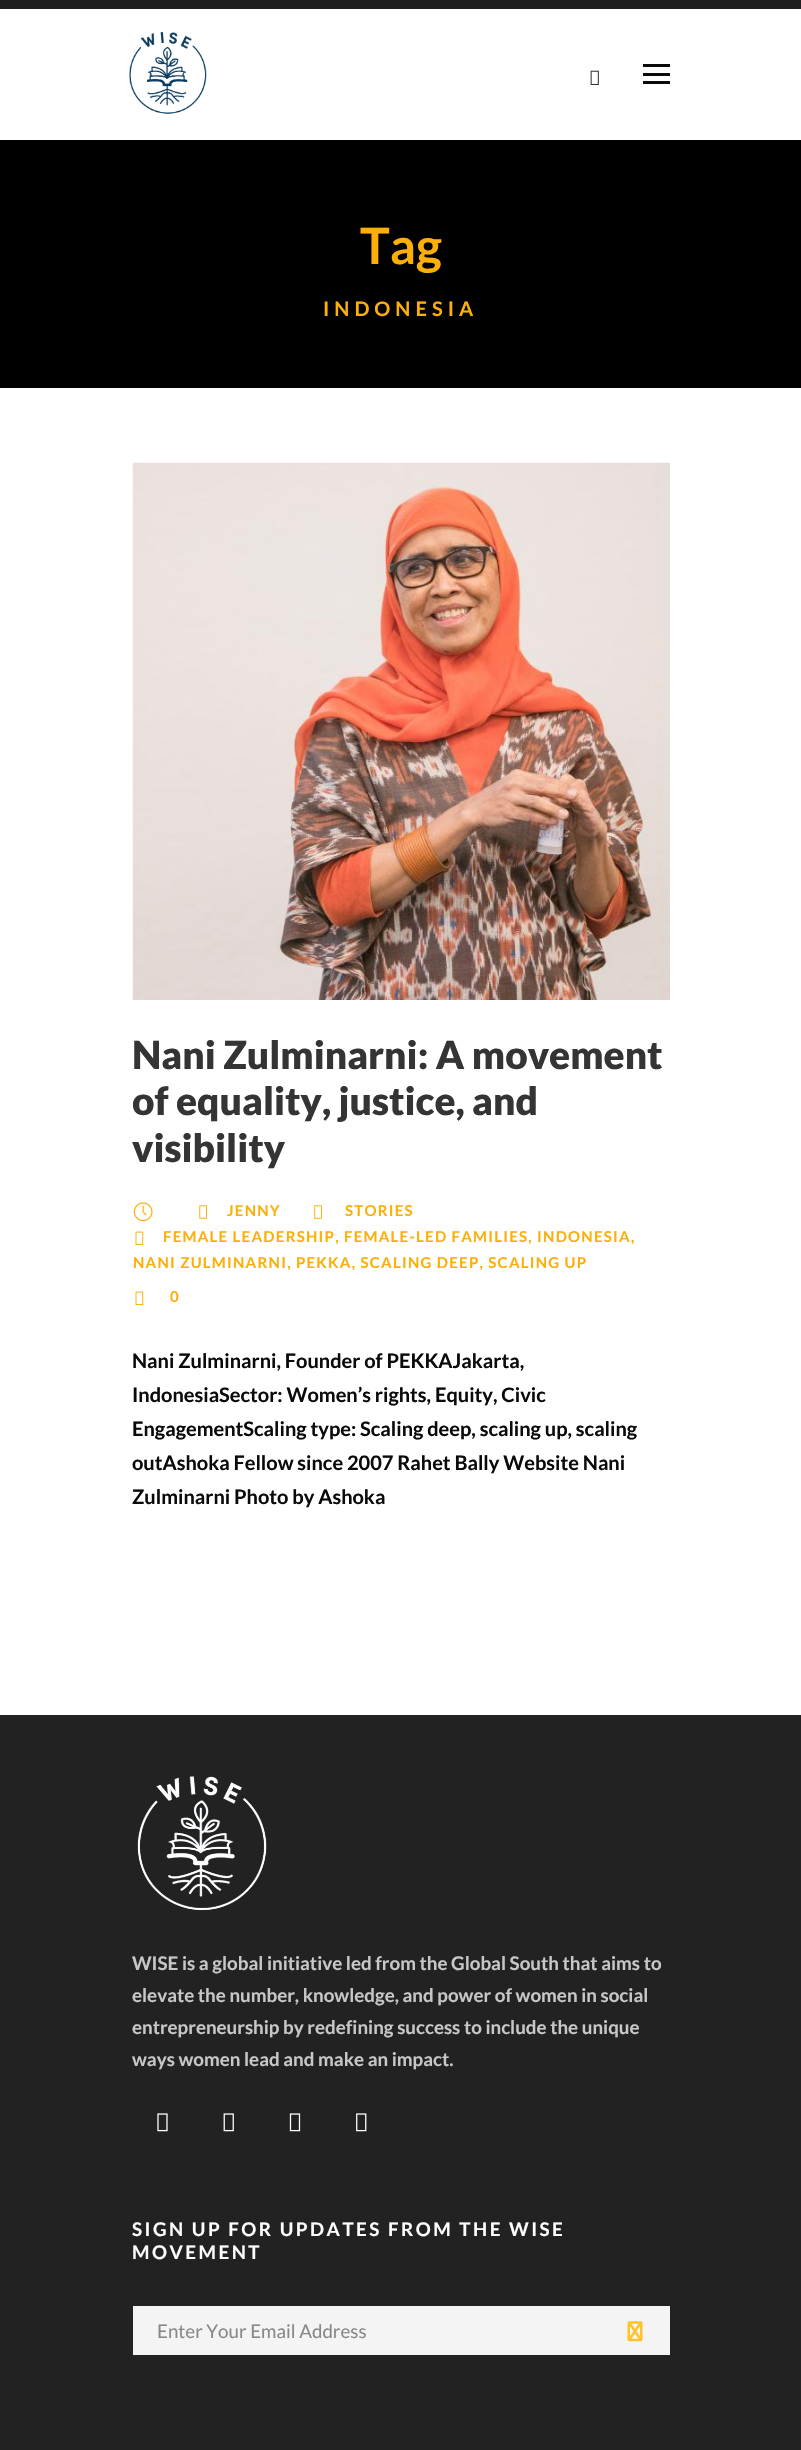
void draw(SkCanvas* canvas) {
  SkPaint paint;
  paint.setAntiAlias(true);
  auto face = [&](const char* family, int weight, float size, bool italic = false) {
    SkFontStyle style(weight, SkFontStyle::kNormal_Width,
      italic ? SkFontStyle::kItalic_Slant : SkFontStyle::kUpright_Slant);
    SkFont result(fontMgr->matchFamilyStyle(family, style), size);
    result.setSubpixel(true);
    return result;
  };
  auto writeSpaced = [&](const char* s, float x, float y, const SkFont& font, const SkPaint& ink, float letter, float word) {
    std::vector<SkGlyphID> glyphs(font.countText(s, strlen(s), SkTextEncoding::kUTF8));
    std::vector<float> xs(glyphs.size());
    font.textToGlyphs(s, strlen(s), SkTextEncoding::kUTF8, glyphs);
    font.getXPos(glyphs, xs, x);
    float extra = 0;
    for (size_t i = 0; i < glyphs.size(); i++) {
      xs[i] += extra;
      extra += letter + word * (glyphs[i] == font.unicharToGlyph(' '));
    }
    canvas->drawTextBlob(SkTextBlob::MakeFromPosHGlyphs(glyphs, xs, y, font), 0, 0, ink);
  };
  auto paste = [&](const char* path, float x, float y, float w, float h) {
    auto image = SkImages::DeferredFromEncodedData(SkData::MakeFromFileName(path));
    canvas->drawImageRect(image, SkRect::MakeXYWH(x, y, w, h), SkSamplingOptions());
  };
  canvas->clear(0xffffffff);
  paint.setColor(0xff1f1f1f);
  canvas->drawRect(SkRect::MakeXYWH(0, 0, 801, 9), paint);
  paste("img/1.png", 129, 32, 78, 82);
  paste("img/2.png", 590, 70, 9, 15);
  {
    const struct { float x, y, w, h; SkColor color; } items[] = {
      {643, 64, 27, 3, 0xff0a0a0a},
      {643, 73, 27, 3, 0xff0a0a0a},
      {643, 81, 27, 3, 0xff0a0a0a},
      {0, 140, 801, 248, 0xff000000},
    };
    for (auto [x, y, w, h, color] : items) {
      paint.setColor(color);
      canvas->drawRect(SkRect::MakeXYWH(x, y, w, h), paint);
    }
  }
  paste("img/3.png", 132, 462, 538, 538);
  paste("img/4.png", 133, 1202, 20, 20);
  paste("img/5.png", 199, 1205, 8, 14);
  paste("img/5.png", 314, 1205, 8, 14);
  paste("img/6.png", 135, 1231, 9, 14);
  paste("img/6.png", 135, 1291, 9, 14);
  paint.setColor(0xff222222);
  canvas->drawRect(SkRect::MakeXYWH(0, 1715, 801, 735), paint);
  paste("img/7.png", 137, 1776, 130, 135);
  paste("img/8.png", 157, 2113, 11, 19);
  paste("img/9.png", 223, 2113, 11, 19);
  paste("img/10.png", 289, 2113, 12, 19);
  paste("img/11.png", 356, 2113, 11, 19);
  paint.setColor(0xfff4f4f4);
  canvas->drawRect(SkRect::MakeXYWH(133, 2306, 537, 49), paint);
  paste("img/12.png", 627, 2321, 16, 21);
  auto f0 = face("Lato", 700, 50);
  paint.setColor(0xfffbaf08);
  canvas->drawString("Tag", 360, 264, f0, paint);
  auto f1 = face("Lato", 700, 20);
  writeSpaced("INDONESIA", 323, 316, f1, paint, 5, 0);
  auto f2 = face("Lato", 900, 38.75f);
  paint.setColor(0xff343434);
  {
    const struct { const char* s; float x, y; } items[] = {
      {"Nani Zulminarni: A movement", 132, 1069},
      {"of equality, justice, and", 132, 1115},
      {"visibility", 132, 1162},
    };
    for (auto [s, x, y] : items) {
      canvas->drawString(s, x, y, f2, paint);
    }
  }
  auto f3 = face("Lato", 700, 15);
  paint.setColor(0xfffbaf08);
  {
    const struct { const char* s; float x, y; } items[] = {
      {"JENNY", 227, 1216},
      {"STORIES", 345, 1216},
      {"FEMALE LEADERSHIP, FEMALE-LED FAMILIES, INDONESIA,", 163, 1242},
      {"NANI ZULMINARNI, PEKKA, SCALING DEEP, SCALING UP", 133, 1268},
      {"0", 170, 1302},
    };
    for (auto [s, x, y] : items) {
      writeSpaced(s, x, y, f3, paint, 1.25f, 0);
    }
  }
  paint.setColor(0xff0a0a0a);
  {
    const struct { const char* s; float x, y; } items[] = {
      {"Nani Zulminarni, Founder of PEKKAJakarta,", 132, 1368},
      {"IndonesiaSector: Women’s rights, Equity, Civic", 132, 1402},
      {"EngagementScaling type: Scaling deep, scaling up, scaling", 132, 1436},
      {"outAshoka Fellow since 2007 Rahet Bally Website Nani", 132, 1470},
      {"Zulminarni Photo by Ashoka", 132, 1504},
    };
    for (auto [s, x, y] : items) {
      canvas->drawString(s, x, y, f1, paint);
    }
  }
  auto f4 = face("Lato", 700, 18.75f);
  paint.setColor(0xffc7c7c7);
  {
    const struct { const char* s; float x, y; } items[] = {
      {"WISE is a global initiative led from the Global South that aims to", 132, 1970},
      {"elevate the number, knowledge, and power of women in social", 132, 2002},
      {"entrepreneurship by redefining success to include the unique", 132, 2034},
      {"ways women lead and make an impact.", 132, 2066},
    };
    for (auto [s, x, y] : items) {
      canvas->drawString(s, x, y, f4, paint);
    }
  }
  paint.setColor(0xffffffff);
  writeSpaced("SIGN UP FOR UPDATES FROM THE WISE", 132, 2236, f4, paint, 2.5f, 0);
  writeSpaced("MOVEMENT", 132, 2259, f4, paint, 2.5f, 0);
  auto f5 = face("Lato", 400, 18.75f);
  paint.setColor(0xff888888);
  canvas->drawString("Enter Your Email Address", 157, 2338, f5, paint);
}
